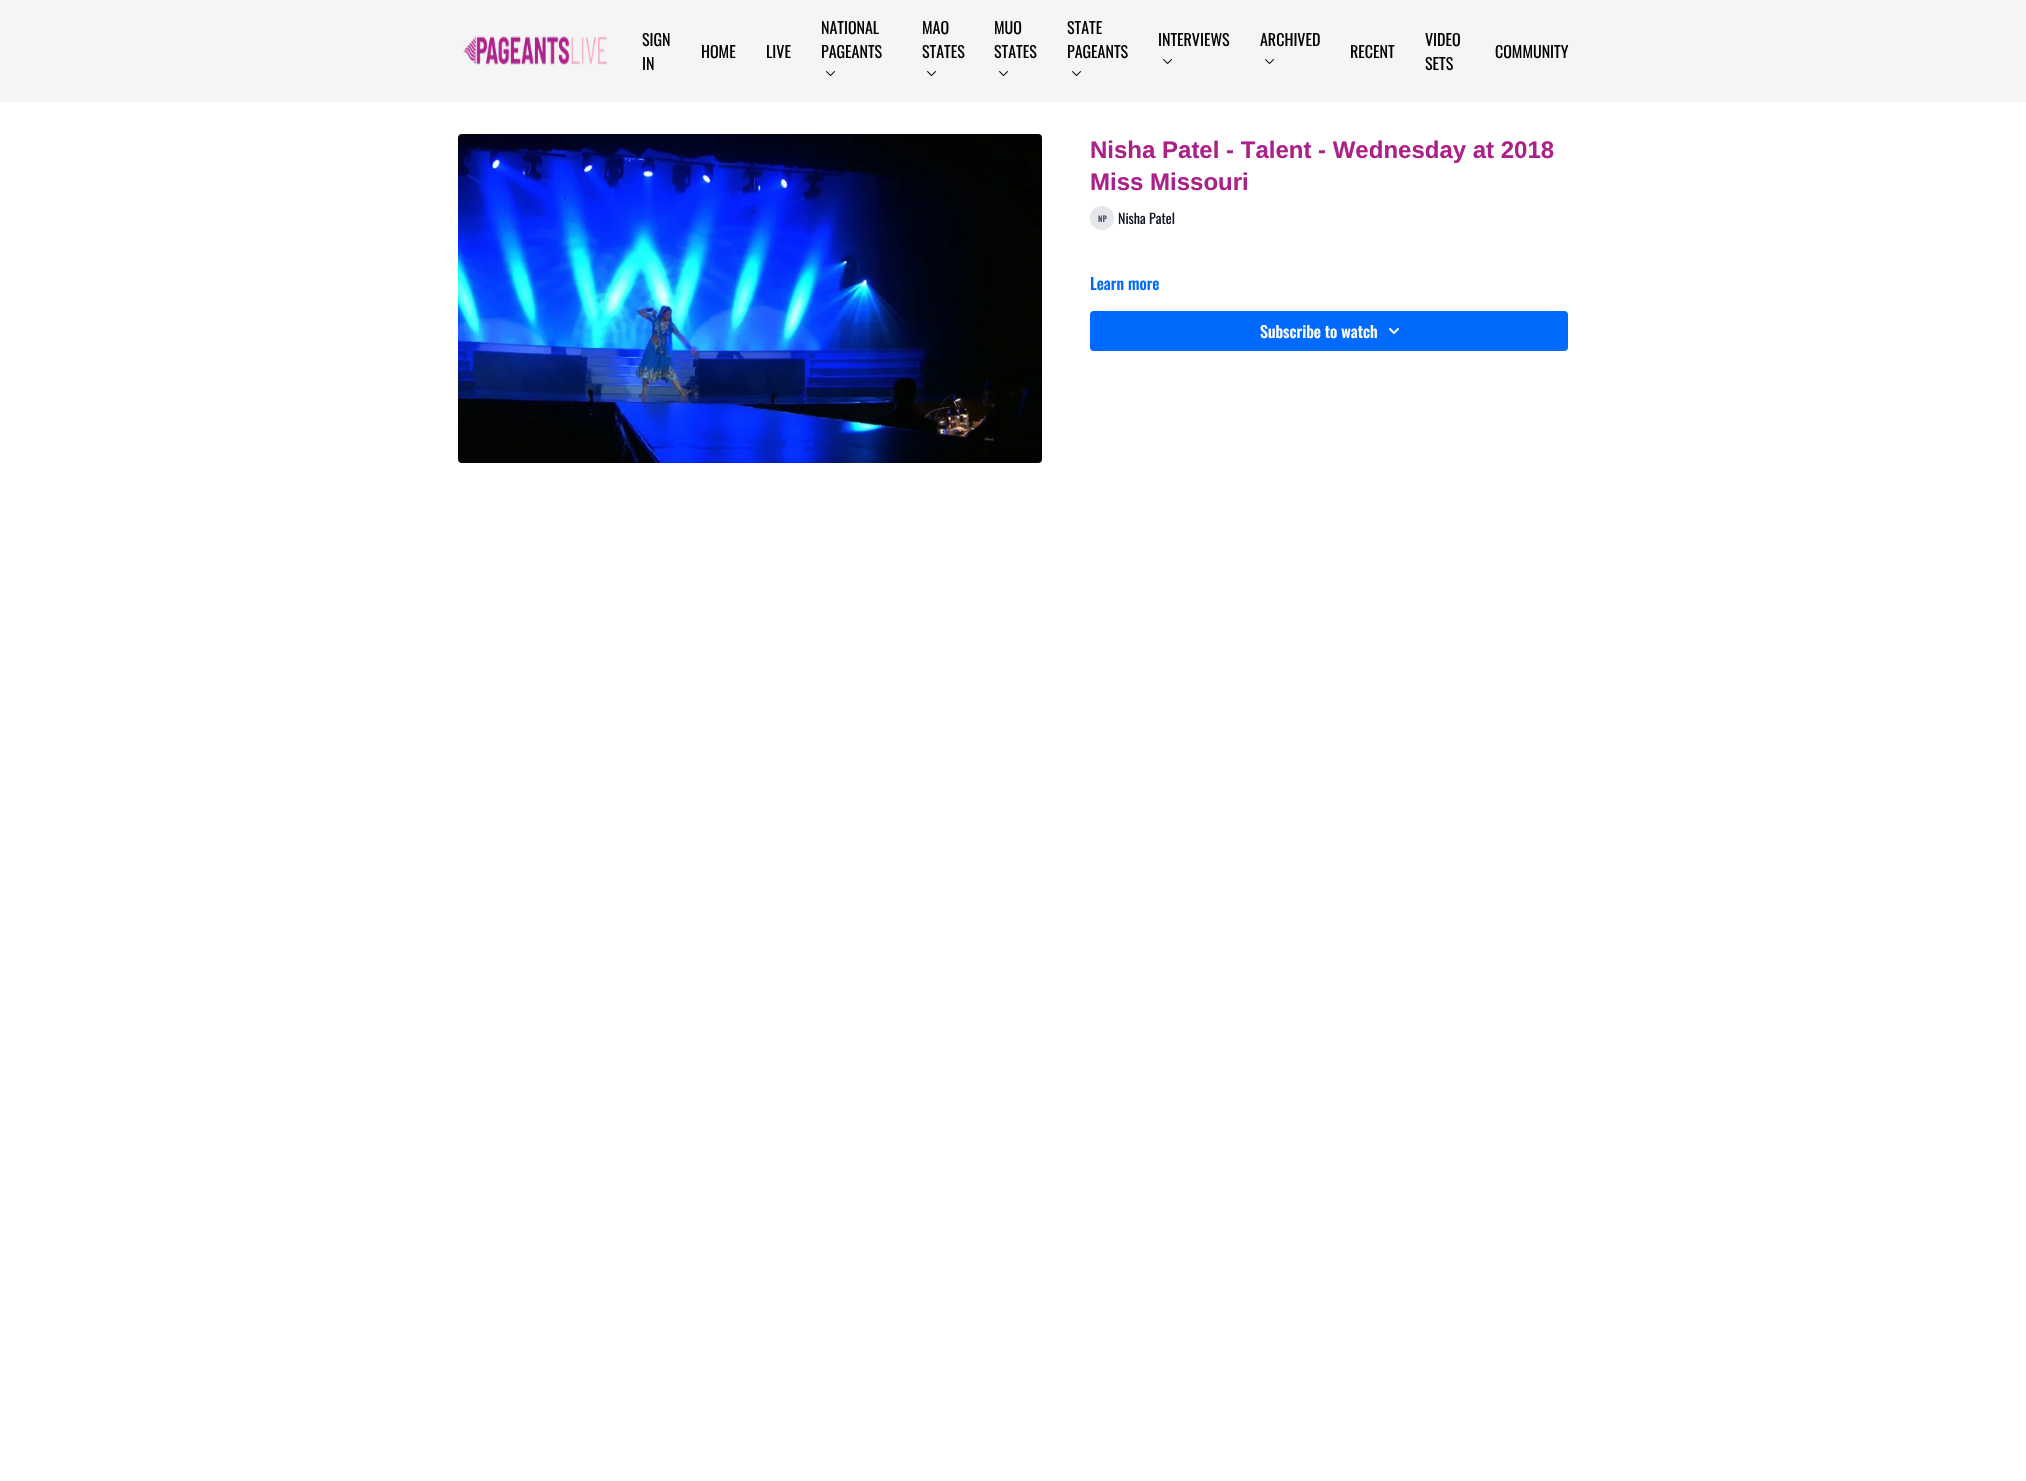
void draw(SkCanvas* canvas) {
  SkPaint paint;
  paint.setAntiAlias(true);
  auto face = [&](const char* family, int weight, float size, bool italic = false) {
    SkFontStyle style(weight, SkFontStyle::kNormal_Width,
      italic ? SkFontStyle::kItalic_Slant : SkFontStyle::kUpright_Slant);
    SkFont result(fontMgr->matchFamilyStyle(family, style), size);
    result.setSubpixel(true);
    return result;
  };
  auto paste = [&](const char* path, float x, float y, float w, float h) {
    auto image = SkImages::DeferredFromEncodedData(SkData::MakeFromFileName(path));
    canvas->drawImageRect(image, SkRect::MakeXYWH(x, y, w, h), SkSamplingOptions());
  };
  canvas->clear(0xffffffff);
  paint.setColor(0xfff6f5f6);
  canvas->drawRect(SkRect::MakeXYWH(0, 0, 2026, 102), paint);
  paste("img/1.png", 463, 36, 144, 29);
  paste("img/2.png", 826, 71, 9, 5);
  paste("img/2.png", 927, 71, 9, 5);
  paste("img/2.png", 999, 71, 9, 5);
  paste("img/2.png", 1072, 71, 9, 5);
  paste("img/2.png", 1163, 59, 9, 5);
  paste("img/2.png", 1265, 59, 9, 5);
  paste("img/3.png", 458, 134, 584, 329);
  paint.setColor(0xffe5e7eb);
  canvas->drawCircle(1102, 218, 12, paint);
  paint.setColor(0xff006aff);
  canvas->drawRoundRect(SkRect::MakeXYWH(1090, 311, 478, 40), 4, 4, paint);
  paste("img/4.png", 1389, 328, 10, 6);
  auto f0 = face("Oswald", 400, 16);
  paint.setColor(0xff060606);
  {
    const struct { const char* s; float x, y; } items[] = {
      {"SIGN", 642, 46},
      {"IN", 642, 70},
      {"HOME", 701, 58},
      {"LIVE", 766, 58},
      {"NATIONAL", 821, 34},
      {"PAGEANTS", 821, 58},
      {"MAO", 922, 34},
      {"STATES", 922, 58},
      {"MUO", 994, 34},
      {"STATES", 994, 58},
      {"STATE", 1067, 34},
      {"PAGEANTS", 1067, 58},
      {"INTERVIEWS", 1158, 46},
      {"ARCHIVED", 1260, 46},
      {"RECENT", 1350, 58},
      {"VIDEO", 1425, 46},
      {"SETS", 1425, 70},
      {"COMMUNITY", 1495, 58},
    };
    for (auto [s, x, y] : items) {
      canvas->drawString(s, x, y, f0, paint);
    }
  }
  auto f1 = face("Liberation Sans", 700, 24);
  paint.setColor(0xffab2188);
  canvas->drawString("Nisha Patel - Talent - Wednesday at 2018", 1090, 158, f1, paint);
  canvas->drawString("Miss Missouri", 1090, 190, f1, paint);
  auto f2 = face("Oswald", 600, 8);
  paint.setColor(0xff4b5563);
  canvas->drawString("NP", 1098, 222, f2, paint);
  auto f3 = face("Oswald", 400, 14);
  paint.setColor(0xff111827);
  canvas->drawString("Nisha Patel", 1118, 224, f3, paint);
  auto f4 = face("Oswald", 500, 16);
  paint.setColor(0xff006aff);
  canvas->drawString("Learn more", 1090, 290, f4, paint);
  paint.setColor(0xffffffff);
  canvas->drawString("Subscribe to watch", 1260, 338, f4, paint);
}
